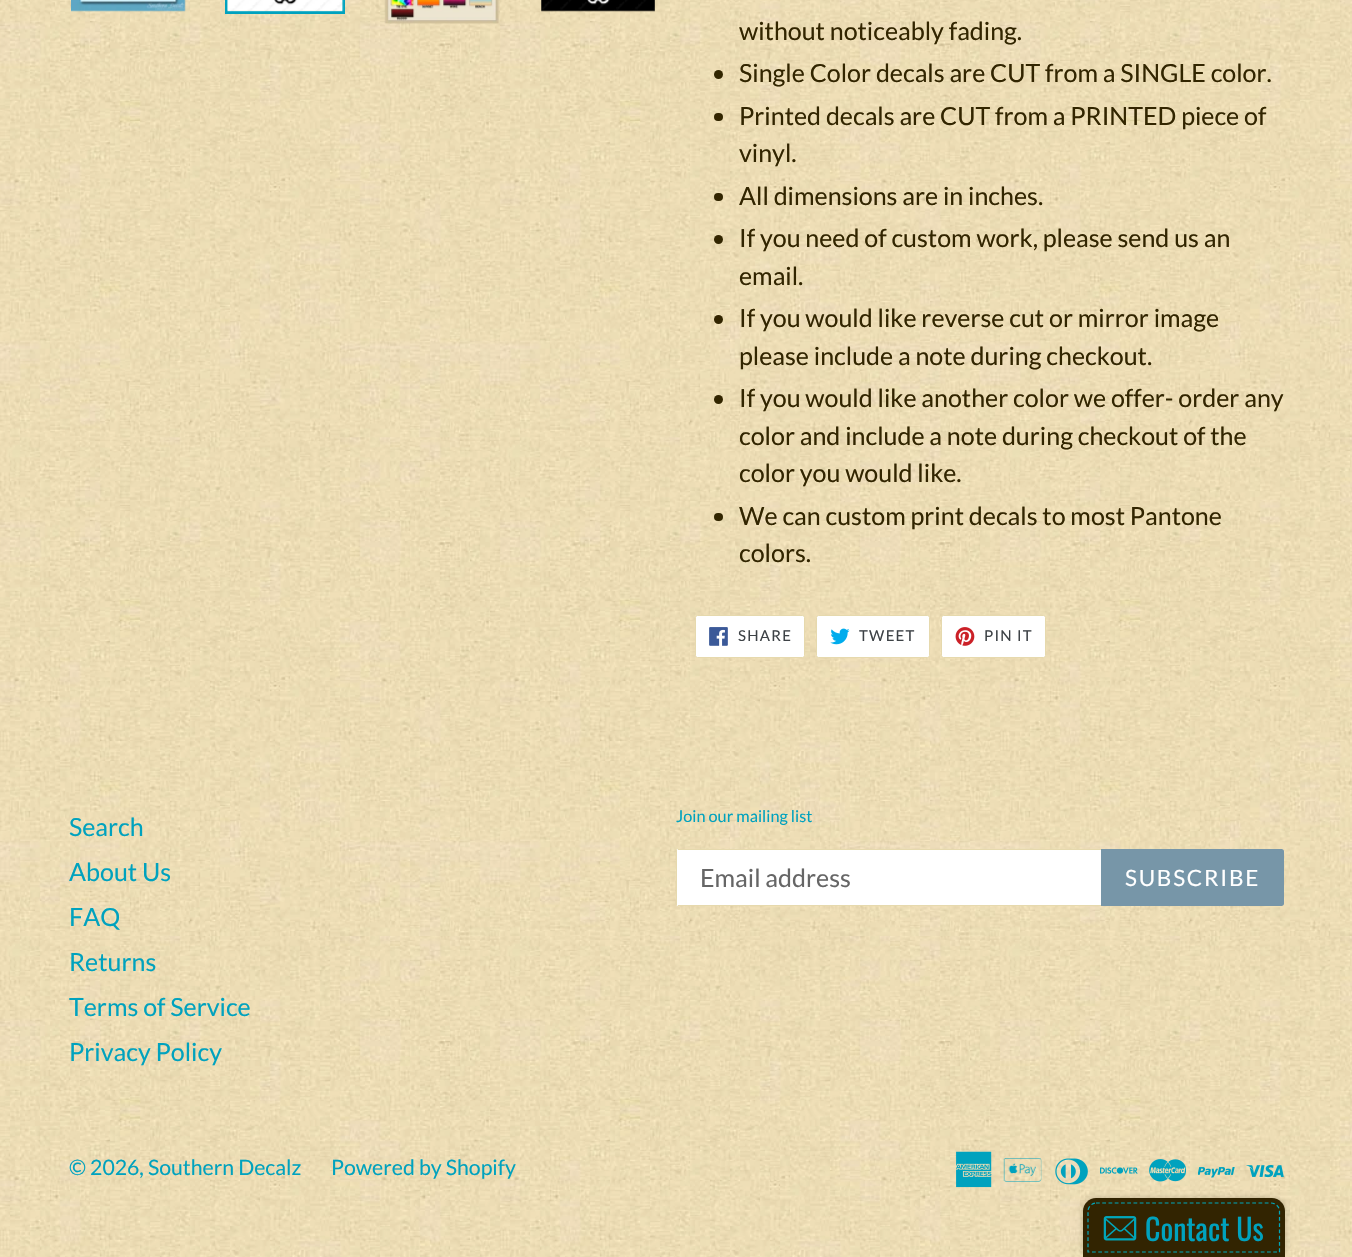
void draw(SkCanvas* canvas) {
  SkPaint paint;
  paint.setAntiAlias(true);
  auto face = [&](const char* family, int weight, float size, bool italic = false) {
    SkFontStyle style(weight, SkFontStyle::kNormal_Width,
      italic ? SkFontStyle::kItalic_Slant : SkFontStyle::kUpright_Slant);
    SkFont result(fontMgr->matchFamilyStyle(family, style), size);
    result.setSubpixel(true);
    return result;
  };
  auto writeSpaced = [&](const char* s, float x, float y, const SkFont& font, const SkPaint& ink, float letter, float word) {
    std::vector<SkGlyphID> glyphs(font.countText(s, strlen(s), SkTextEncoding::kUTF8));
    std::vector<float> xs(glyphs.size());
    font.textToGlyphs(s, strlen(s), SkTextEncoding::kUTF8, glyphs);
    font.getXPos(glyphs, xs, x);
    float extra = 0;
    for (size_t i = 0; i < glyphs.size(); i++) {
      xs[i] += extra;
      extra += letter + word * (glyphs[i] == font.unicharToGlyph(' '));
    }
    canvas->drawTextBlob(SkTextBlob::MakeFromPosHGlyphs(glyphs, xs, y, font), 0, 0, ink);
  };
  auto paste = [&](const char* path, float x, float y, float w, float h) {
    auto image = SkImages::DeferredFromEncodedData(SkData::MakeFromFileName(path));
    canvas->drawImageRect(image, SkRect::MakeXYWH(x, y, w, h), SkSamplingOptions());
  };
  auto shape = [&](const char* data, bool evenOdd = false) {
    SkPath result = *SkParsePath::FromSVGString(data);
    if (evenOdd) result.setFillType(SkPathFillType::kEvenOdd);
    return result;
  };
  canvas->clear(0xffffffff);
  paste("img/1.png", 0, 0, 1352, 1257);
  paste("img/2.png", 71, 0, 115, 12);
  paint.setStroke(true);
  paint.setStrokeWidth(3);
  paint.setColor(0xff00a2be);
  canvas->drawRect(SkRect::MakeXYWH(226.5f, -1.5f, 117, 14), paint);
  paste("img/3.png", 227, 0, 117, 12);
  paste("img/4.png", 384, 0, 116, 24);
  paste("img/5.png", 541, 0, 114, 12);
  paint.setStroke(false);
  paint.setColor(0xff322500);
  canvas->drawCircle(718.5f, 74.5f, 4.5f, paint);
  canvas->drawRoundRect(SkRect::MakeXYWH(714, 113, 9, 8), 4, 4, paint);
  canvas->drawRoundRect(SkRect::MakeXYWH(714, 193, 9, 8), 4, 4, paint);
  canvas->drawCircle(718.5f, 239.5f, 4.5f, paint);
  canvas->drawCircle(718.5f, 319.5f, 4.5f, paint);
  canvas->drawCircle(718.5f, 399.5f, 4.5f, paint);
  canvas->drawRoundRect(SkRect::MakeXYWH(714, 513, 9, 8), 4, 4, paint);
  paint.setColor(0xffffffff);
  canvas->drawRoundRect(SkRect::MakeXYWH(695.5f, 615.5f, 109, 42), 2, 2, paint);
  paint.setStroke(true);
  paint.setStrokeWidth(1);
  paint.setColor(0xffe6d9ad);
  canvas->drawRoundRect(SkRect::MakeXYWH(695.5f, 615.5f, 109, 42), 2, 2, paint);
  paste("img/6.png", 709, 627, 19, 19);
  paint.setStroke(false);
  paint.setColor(0xffffffff);
  canvas->drawRoundRect(SkRect::MakeXYWH(816.5f, 615.5f, 113, 42), 2, 2, paint);
  paint.setStroke(true);
  paint.setColor(0xffe6d9ad);
  canvas->drawRoundRect(SkRect::MakeXYWH(816.5f, 615.5f, 113, 42), 2, 2, paint);
  paste("img/7.png", 830, 628, 20, 17);
  paint.setStroke(false);
  paint.setColor(0xffffffff);
  canvas->drawRoundRect(SkRect::MakeXYWH(941.5f, 615.5f, 104, 42), 2, 2, paint);
  paint.setStroke(true);
  paint.setColor(0xffe6d9ad);
  canvas->drawRoundRect(SkRect::MakeXYWH(941.5f, 615.5f, 104, 42), 2, 2, paint);
  paste("img/8.png", 955, 627, 20, 19);
  paint.setStroke(false);
  paint.setColor(0xffffffff);
  canvas->drawPath(shape("M678.5 849H1101V906H678.5C677 906 676 905 676 903.5V851.5C676 850 677 849 678.5 849Z"), paint);
  {
    const struct { float x, y, w, h; SkColor color; } items[] = {
      {678, 849, 423, 1, 0xffe6d9ad},
      {678, 905, 423, 1, 0xffe6d9ad},
      {676, 850, 1, 55, 0xffe6d9ad},
    };
    for (auto [x, y, w, h, color] : items) {
      paint.setColor(color);
      canvas->drawRect(SkRect::MakeXYWH(x, y, w, h), paint);
    }
  }
  paint.setColor(0xff7796a8);
  canvas->drawPath(shape("M1101 849H1281.5C1283 849 1284 850 1284 851.5V903.5C1284 905 1283 906 1281.5 906H1101Z"), paint);
  paste("img/9.png", 956, 1151, 36, 37);
  paste("img/10.png", 1003, 1158, 39, 24);
  paste("img/11.png", 1055, 1158, 33, 27);
  paste("img/12.png", 1100, 1167, 38, 7);
  paste("img/13.png", 1149, 1159, 37, 23);
  paste("img/14.png", 1198, 1167, 37, 11);
  paste("img/15.png", 1246, 1165, 38, 13);
  paint.setColor(0x33000000);
  paint.setMaskFilter(SkMaskFilter::MakeBlur(kNormal_SkBlurStyle, 3));
  canvas->drawRoundRect(SkRect::MakeXYWH(1083, 1198, 202, 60), 13, 13, paint);
  paint.setMaskFilter(nullptr);
  paint.setColor(0xff322401);
  canvas->drawPath(shape("M1096 1198H1272C1279 1198 1285 1204 1285 1211V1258H1083V1211C1083 1204 1089 1198 1096 1198Z"), paint);
  paint.setStroke(true);
  paint.setStrokeWidth(1.2f);
  paint.setColor(0xff00a7bb);
  paint.setPathEffect(SkDashPathEffect::Make({{3.75f, 2.5f}}, 0));
  canvas->drawPath(shape("M1096 1203H1271C1275.5 1203 1279.5 1207 1279.5 1211V1252H1088V1211C1088 1207 1092 1203 1096 1203Z"), paint);
  paint.setPathEffect(nullptr);
  paste("img/16.png", 1103, 1216, 34, 25);
  auto f0 = face("Lato", 400, 25);
  paint.setStroke(false);
  paint.setColor(0xff322500);
  {
    const struct { const char* s; float x, y; } items[] = {
      {"without noticeably fading.", 739, 40},
      {"Single Color decals are CUT from a SINGLE color.", 739, 82},
      {"Printed decals are CUT from a PRINTED piece of", 739, 125},
      {"vinyl.", 739, 162},
      {"All dimensions are in inches.", 739, 205},
      {"If you need of custom work, please send us an", 739, 247},
      {"email.", 739, 285},
      {"If you would like reverse cut or mirror image", 739, 327},
      {"please include a note during checkout.", 739, 365},
      {"If you would like another color we offer- order any", 739, 407},
      {"color and include a note during checkout of the", 739, 445},
      {"color you would like.", 739, 482},
      {"We can custom print decals to most Pantone", 739, 525},
      {"colors.", 739, 562},
    };
    for (auto [s, x, y] : items) {
      canvas->drawString(s, x, y, f0, paint);
    }
  }
  auto f1 = face("Lato", 400, 15);
  paint.setColor(0xff3d4246);
  {
    const struct { const char* s; float x, y; } items[] = {
      {"SHARE", 738, 641},
      {"TWEET", 859, 641},
      {"PIN IT", 984, 641},
    };
    for (auto [s, x, y] : items) {
      writeSpaced(s, x, y, f1, paint, 1.25f, 0);
    }
  }
  paint.setColor(0xff00a2be);
  {
    const struct { const char* s; float x, y; } items[] = {
      {"Search", 69, 836},
      {"About Us", 69, 881},
      {"FAQ", 69, 926},
      {"Returns", 69, 971},
      {"Terms of Service", 69, 1016},
      {"Privacy Policy", 69, 1061},
    };
    for (auto [s, x, y] : items) {
      canvas->drawString(s, x, y, f0, paint);
    }
  }
  auto f2 = face("Lato", 400, 16.25f);
  canvas->drawString("Join our mailing list", 676, 822, f2, paint);
  paint.setColor(0xff666666);
  canvas->drawString("Email address", 700, 887, f0, paint);
  auto f3 = face("Lato", 400, 22.5f);
  paint.setColor(0xffffffff);
  writeSpaced("SUBSCRIBE", 1125, 886, f3, paint, 1.75f, 0);
  auto f4 = face("Lato", 400, 21.25f);
  paint.setColor(0xff00a2be);
  canvas->drawString("© 2026, Southern Decalz", 69, 1175, f4, paint);
  canvas->drawString("Powered by Shopify", 331, 1175, f4, paint);
  auto f5 = face("Oswald", 400, 30);
  canvas->drawString("Contact Us", 1145, 1241, f5, paint);
}
